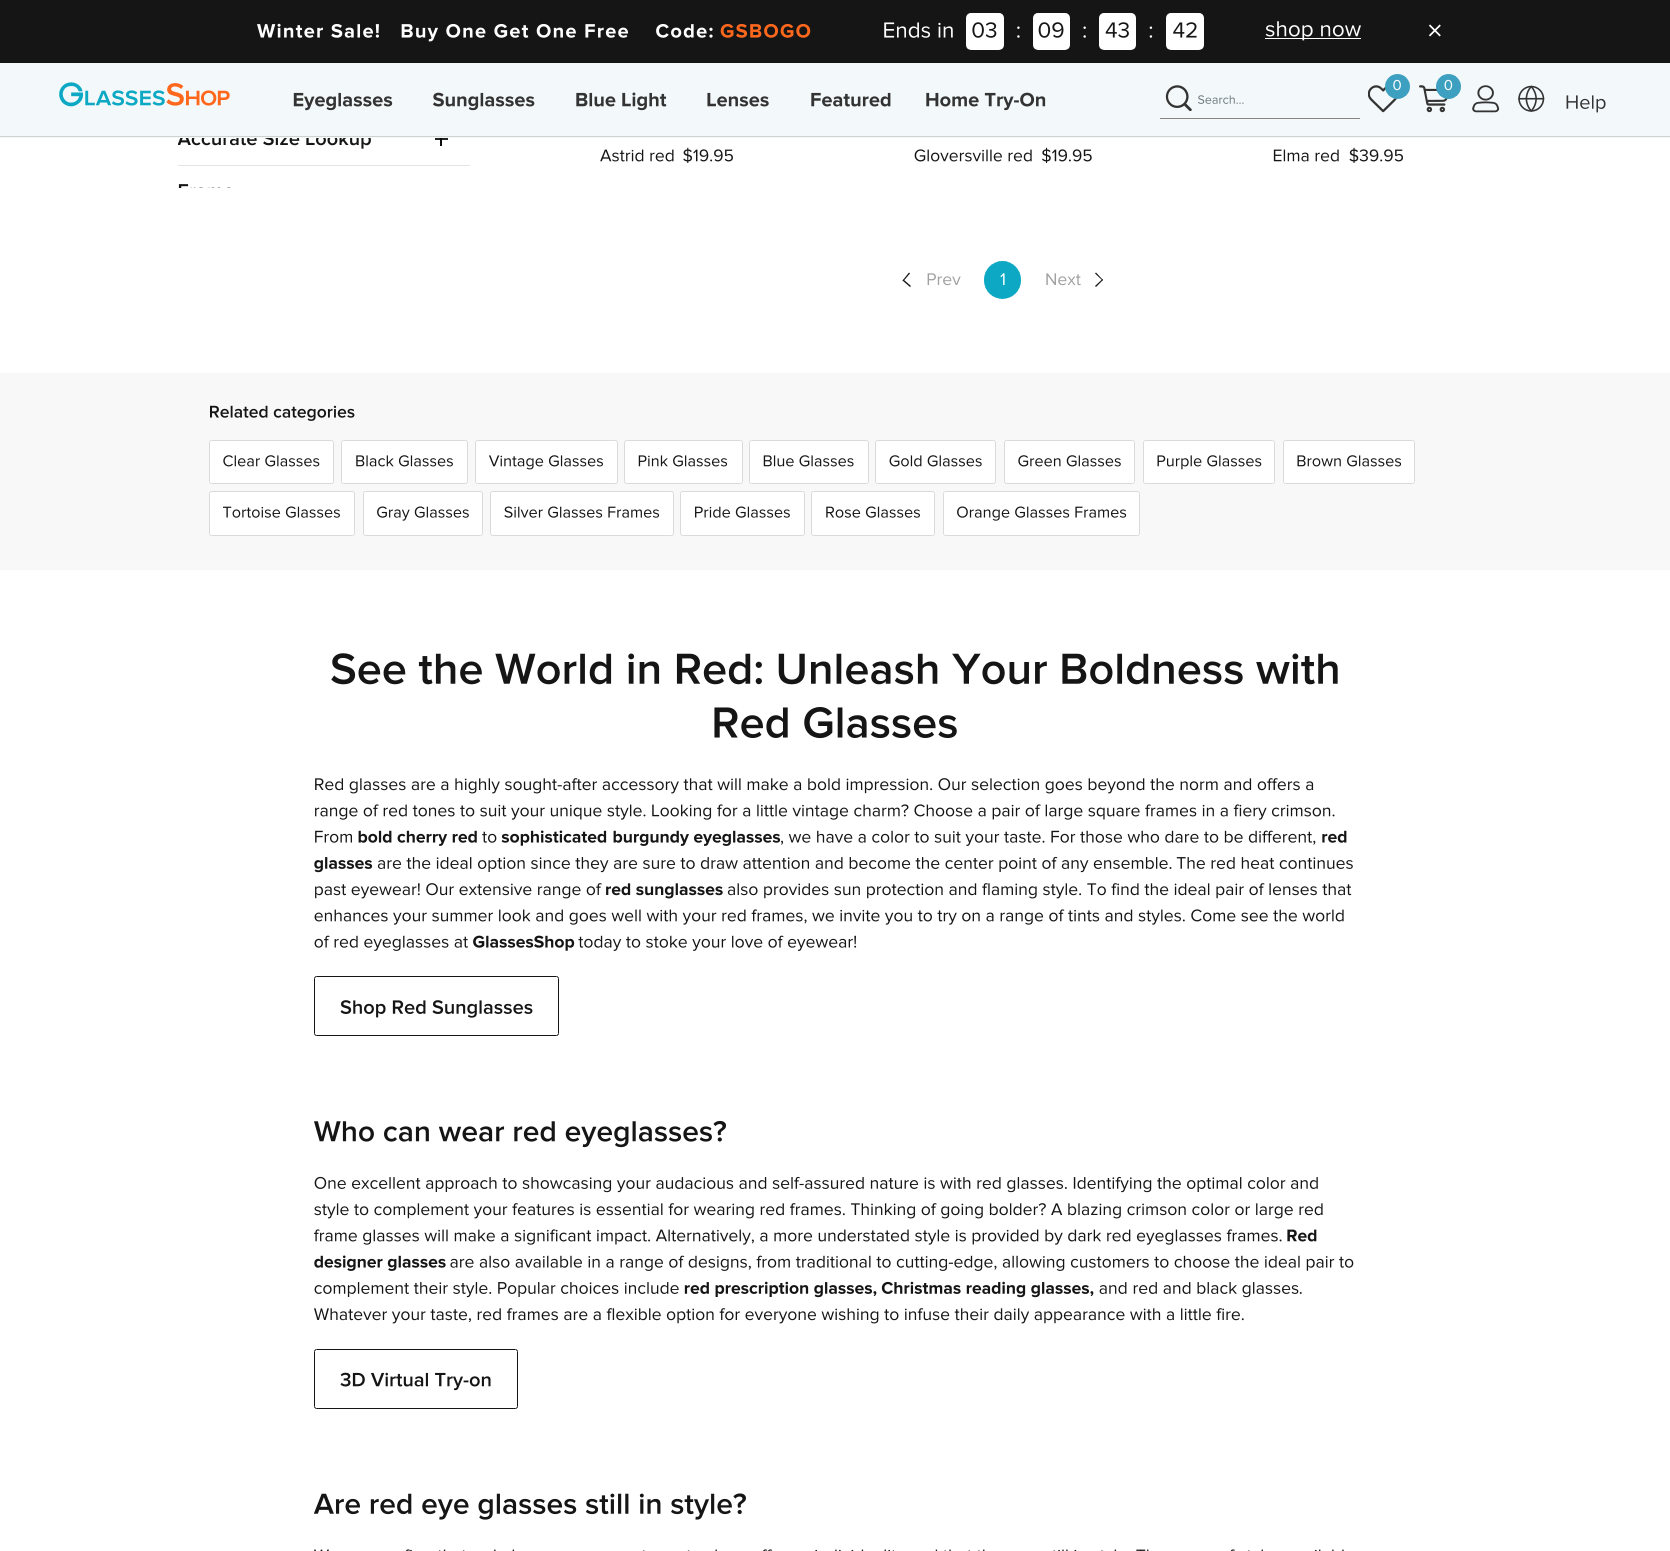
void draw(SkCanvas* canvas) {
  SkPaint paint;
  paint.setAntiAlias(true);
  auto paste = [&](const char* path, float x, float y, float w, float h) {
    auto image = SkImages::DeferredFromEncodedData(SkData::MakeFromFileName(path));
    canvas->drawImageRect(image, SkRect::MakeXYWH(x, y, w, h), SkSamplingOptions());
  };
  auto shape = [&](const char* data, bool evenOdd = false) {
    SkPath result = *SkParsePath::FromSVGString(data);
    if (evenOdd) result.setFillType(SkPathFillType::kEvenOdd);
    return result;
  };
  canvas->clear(0xffffffff);
  paint.setColor(0xff0d0d0d);
  canvas->drawRect(SkRect::MakeXYWH(440, 132, 2, 14), paint);
  paint.setColor(0xff151515);
  canvas->drawRect(SkRect::MakeXYWH(0, 0, 1670, 63), paint);
  paste("img/1.png", 257, 23, 456, 19);
  paste("img/2.png", 720, 23, 91, 15);
  paste("img/3.png", 884, 22, 69, 16);
  paint.setColor(0xffffffff);
  canvas->drawRoundRect(SkRect::MakeXYWH(966, 13, 38, 37), 5, 5, paint);
  paste("img/4.png", 972, 22, 25, 16);
  paste("img/5.png", 1017, 26, 3, 12);
  canvas->drawRoundRect(SkRect::MakeXYWH(1033, 13, 37, 37), 5, 5, paint);
  paste("img/6.png", 1038, 22, 26, 16);
  paste("img/7.png", 1083, 26, 3, 12);
  canvas->drawRoundRect(SkRect::MakeXYWH(1099, 13, 37, 37), 5, 5, paint);
  paste("img/8.png", 1105, 22, 24, 16);
  paste("img/9.png", 1149, 26, 4, 12);
  canvas->drawRoundRect(SkRect::MakeXYWH(1166, 13, 38, 37), 5, 5, paint);
  paste("img/10.png", 1173, 22, 24, 16);
  canvas->drawRect(SkRect::MakeXYWH(1265, 38, 96, 1), paint);
  paste("img/11.png", 1265, 21, 96, 20);
  paste("img/12.png", 1428, 24, 13, 13);
  paint.setColor(0xfff3f9fa);
  canvas->drawRect(SkRect::MakeXYWH(0, 63, 1670, 75), paint);
  paint.setColor(0xffd1d1d1);
  canvas->drawRect(SkRect::MakeXYWH(0, 136, 1670, 1), paint);
  paste("img/13.png", 59, 82, 171, 25);
  paste("img/14.png", 293, 92, 100, 19);
  paste("img/15.png", 433, 92, 102, 19);
  paste("img/16.png", 576, 92, 91, 19);
  paste("img/17.png", 707, 92, 62, 15);
  paste("img/18.png", 811, 92, 80, 15);
  paste("img/19.png", 926, 92, 120, 19);
  paste("img/20.png", 1165, 85, 27, 26);
  paint.setColor(0xff8b847d);
  canvas->drawRect(SkRect::MakeXYWH(1160, 118, 200, 1), paint);
  paste("img/21.png", 1198, 95, 46, 9);
  paste("img/22.png", 1368, 85, 30, 28);
  paint.setColor(0xff3ea0c0);
  canvas->drawCircle(1397.5f, 86.5f, 12.5f, paint);
  paste("img/23.png", 1393, 79, 8, 12);
  paste("img/24.png", 1419, 85, 29, 28);
  canvas->drawCircle(1448.5f, 86.5f, 12.5f, paint);
  paste("img/25.png", 1444, 79, 9, 12);
  paste("img/26.png", 1472, 85, 28, 28);
  paste("img/27.png", 1518, 85, 27, 27);
  paste("img/28.png", 1566, 95, 40, 18);
  paste("img/29.png", 178, 138, 193, 11);
  {
    const struct { float x, y, w, h; SkColor color; } items[] = {
      {435, 138, 13, 2, 0xff212121},
      {440, 138, 2, 2, 0xff020202},
      {178, 165, 292, 1, 0xffe4e4e4},
    };
    for (auto [x, y, w, h, color] : items) {
      paint.setColor(color);
      canvas->drawRect(SkRect::MakeXYWH(x, y, w, h), paint);
    }
  }
  paste("img/30.png", 178, 184, 53, 4);
  paste("img/31.png", 600, 149, 74, 13);
  paste("img/32.png", 683, 147, 50, 16);
  paste("img/33.png", 914, 149, 118, 13);
  paste("img/34.png", 1042, 147, 50, 16);
  paste("img/35.png", 1273, 149, 66, 13);
  paste("img/36.png", 1349, 147, 54, 16);
  paint.setColor(0xff151515);
  canvas->drawPath(shape("M910 287L902.5 280.5L903.5 279.5L911 286Z"), paint);
  canvas->drawPath(shape("M903.5 281L902.5 280.5L909 272.5L910 273.5Z"), paint);
  paste("img/37.png", 927, 273, 34, 13);
  paint.setColor(0xff0da9c4);
  canvas->drawRoundRect(SkRect::MakeXYWH(984, 261, 37, 38), 18.5f, 18.5f, paint);
  paste("img/38.png", 1000, 273, 5, 12);
  paste("img/39.png", 1046, 273, 35, 13);
  paint.setColor(0xff151515);
  canvas->drawPath(shape("M1096 272.5L1103 280L1102.5 280.5L1095 273.5Z"), paint);
  canvas->drawPath(shape("M1102.5 279L1103 280L1096 287L1095 286Z"), paint);
  paint.setColor(0xfff8f8f8);
  canvas->drawRect(SkRect::MakeXYWH(0, 373, 1670, 197), paint);
  paste("img/40.png", 210, 405, 145, 16);
  paint.setColor(0xffffffff);
  canvas->drawRoundRect(SkRect::MakeXYWH(209.5f, 440.5f, 124, 43), 2, 2, paint);
  paint.setStroke(true);
  paint.setStrokeWidth(1);
  paint.setColor(0xffd9dadb);
  canvas->drawRoundRect(SkRect::MakeXYWH(209.5f, 440.5f, 124, 43), 2, 2, paint);
  paste("img/41.png", 223, 455, 97, 12);
  paint.setStroke(false);
  paint.setColor(0xffffffff);
  canvas->drawRoundRect(SkRect::MakeXYWH(341.5f, 440.5f, 126, 43), 2, 2, paint);
  paint.setStroke(true);
  paint.setColor(0xffd9dadb);
  canvas->drawRoundRect(SkRect::MakeXYWH(341.5f, 440.5f, 126, 43), 2, 2, paint);
  paste("img/42.png", 356, 455, 97, 12);
  paint.setStroke(false);
  paint.setColor(0xffffffff);
  canvas->drawRoundRect(SkRect::MakeXYWH(475.5f, 440.5f, 142, 43), 2, 2, paint);
  paint.setStroke(true);
  paint.setColor(0xffd9dadb);
  canvas->drawRoundRect(SkRect::MakeXYWH(475.5f, 440.5f, 142, 43), 2, 2, paint);
  paste("img/43.png", 489, 455, 114, 15);
  paint.setStroke(false);
  paint.setColor(0xffffffff);
  canvas->drawRoundRect(SkRect::MakeXYWH(624.5f, 440.5f, 118, 43), 2, 2, paint);
  paint.setStroke(true);
  paint.setColor(0xffd9dadb);
  canvas->drawRoundRect(SkRect::MakeXYWH(624.5f, 440.5f, 118, 43), 2, 2, paint);
  paste("img/44.png", 638, 455, 90, 12);
  paint.setStroke(false);
  paint.setColor(0xffffffff);
  canvas->drawRoundRect(SkRect::MakeXYWH(749.5f, 440.5f, 119, 43), 2, 2, paint);
  paint.setStroke(true);
  paint.setColor(0xffd9dadb);
  canvas->drawRoundRect(SkRect::MakeXYWH(749.5f, 440.5f, 119, 43), 2, 2, paint);
  paste("img/45.png", 763, 455, 91, 12);
  paint.setStroke(false);
  paint.setColor(0xffffffff);
  canvas->drawRoundRect(SkRect::MakeXYWH(875.5f, 440.5f, 120, 43), 2, 2, paint);
  paint.setStroke(true);
  paint.setColor(0xffd9dadb);
  canvas->drawRoundRect(SkRect::MakeXYWH(875.5f, 440.5f, 120, 43), 2, 2, paint);
  paste("img/46.png", 889, 455, 93, 12);
  paint.setStroke(false);
  paint.setColor(0xffffffff);
  canvas->drawRoundRect(SkRect::MakeXYWH(1004.5f, 440.5f, 130, 43), 2, 2, paint);
  paint.setStroke(true);
  paint.setColor(0xffd9dadb);
  canvas->drawRoundRect(SkRect::MakeXYWH(1004.5f, 440.5f, 130, 43), 2, 2, paint);
  paste("img/47.png", 1018, 455, 103, 12);
  paint.setStroke(false);
  paint.setColor(0xffffffff);
  canvas->drawRoundRect(SkRect::MakeXYWH(1143.5f, 440.5f, 131, 43), 2, 2, paint);
  paint.setStroke(true);
  paint.setColor(0xffd9dadb);
  canvas->drawRoundRect(SkRect::MakeXYWH(1143.5f, 440.5f, 131, 43), 2, 2, paint);
  paste("img/48.png", 1157, 455, 105, 15);
  paint.setStroke(false);
  paint.setColor(0xffffffff);
  canvas->drawRoundRect(SkRect::MakeXYWH(1283.5f, 440.5f, 131, 43), 2, 2, paint);
  paint.setStroke(true);
  paint.setColor(0xffd9dadb);
  canvas->drawRoundRect(SkRect::MakeXYWH(1283.5f, 440.5f, 131, 43), 2, 2, paint);
  paste("img/49.png", 1297, 455, 105, 12);
  paint.setStroke(false);
  paint.setColor(0xffffffff);
  canvas->drawRoundRect(SkRect::MakeXYWH(209.5f, 491.5f, 145, 44), 2, 2, paint);
  paint.setStroke(true);
  paint.setColor(0xffd9dadb);
  canvas->drawRoundRect(SkRect::MakeXYWH(209.5f, 491.5f, 145, 44), 2, 2, paint);
  paste("img/50.png", 223, 506, 117, 12);
  paint.setStroke(false);
  paint.setColor(0xffffffff);
  canvas->drawRoundRect(SkRect::MakeXYWH(363.5f, 491.5f, 119, 44), 2, 2, paint);
  paint.setStroke(true);
  paint.setColor(0xffd9dadb);
  canvas->drawRoundRect(SkRect::MakeXYWH(363.5f, 491.5f, 119, 44), 2, 2, paint);
  paste("img/51.png", 377, 506, 92, 15);
  paint.setStroke(false);
  paint.setColor(0xffffffff);
  canvas->drawRoundRect(SkRect::MakeXYWH(490.5f, 491.5f, 183, 44), 2, 2, paint);
  paint.setStroke(true);
  paint.setColor(0xffd9dadb);
  canvas->drawRoundRect(SkRect::MakeXYWH(490.5f, 491.5f, 183, 44), 2, 2, paint);
  paste("img/52.png", 504, 506, 156, 12);
  paint.setStroke(false);
  paint.setColor(0xffffffff);
  canvas->drawRoundRect(SkRect::MakeXYWH(680.5f, 491.5f, 124, 44), 2, 2, paint);
  paint.setStroke(true);
  paint.setColor(0xffd9dadb);
  canvas->drawRoundRect(SkRect::MakeXYWH(680.5f, 491.5f, 124, 44), 2, 2, paint);
  paste("img/53.png", 695, 506, 95, 12);
  paint.setStroke(false);
  paint.setColor(0xffffffff);
  canvas->drawRoundRect(SkRect::MakeXYWH(811.5f, 491.5f, 123, 44), 2, 2, paint);
  paint.setStroke(true);
  paint.setColor(0xffd9dadb);
  canvas->drawRoundRect(SkRect::MakeXYWH(811.5f, 491.5f, 123, 44), 2, 2, paint);
  paste("img/54.png", 826, 506, 94, 12);
  paint.setStroke(false);
  paint.setColor(0xffffffff);
  canvas->drawRoundRect(SkRect::MakeXYWH(943.5f, 491.5f, 196, 44), 2, 2, paint);
  paint.setStroke(true);
  paint.setColor(0xffd9dadb);
  canvas->drawRoundRect(SkRect::MakeXYWH(943.5f, 491.5f, 196, 44), 2, 2, paint);
  paste("img/55.png", 957, 506, 170, 15);
  paste("img/56.png", 331, 653, 1007, 32);
  paste("img/57.png", 714, 707, 243, 32);
  paste("img/58.png", 315, 778, 999, 16);
  paste("img/59.png", 315, 804, 1020, 16);
  paste("img/60.png", 315, 830, 37, 13);
  paste("img/61.png", 358, 830, 119, 16);
  paste("img/62.png", 482, 831, 15, 12);
  paste("img/63.png", 501, 830, 106, 16);
  paste("img/64.png", 613, 830, 168, 16);
  paste("img/65.png", 781, 830, 535, 16);
  paste("img/66.png", 1322, 830, 25, 13);
  paste("img/67.png", 314, 857, 59, 16);
  paste("img/68.png", 377, 856, 795, 17);
  paste("img/69.png", 1176, 857, 177, 12);
  paste("img/70.png", 315, 883, 287, 16);
  paste("img/71.png", 606, 883, 117, 16);
  paste("img/72.png", 727, 883, 625, 16);
  paste("img/73.png", 314, 909, 1030, 16);
  paste("img/74.png", 314, 935, 154, 16);
  paste("img/75.png", 473, 935, 102, 16);
  paste("img/76.png", 578, 935, 279, 16);
  paint.setColor(0xff151515);
  canvas->drawRoundRect(SkRect::MakeXYWH(314.5f, 976.5f, 244, 59), 2, 2, paint);
  paste("img/77.png", 340, 1000, 193, 18);
  paste("img/78.png", 314, 1120, 413, 28);
  paste("img/79.png", 314, 1176, 1004, 17);
  paste("img/80.png", 314, 1203, 1009, 16);
  paste("img/81.png", 314, 1229, 968, 16);
  paste("img/82.png", 1287, 1229, 30, 13);
  paste("img/83.png", 314, 1255, 132, 16);
  paste("img/84.png", 450, 1255, 904, 16);
  paste("img/85.png", 314, 1282, 365, 16);
  paste("img/86.png", 684, 1281, 193, 17);
  paste("img/87.png", 881, 1281, 213, 17);
  paste("img/88.png", 1099, 1282, 28, 12);
  paste("img/89.png", 1133, 1282, 166, 16);
  paste("img/90.png", 1299, 1292, 3, 2);
  paste("img/91.png", 314, 1308, 930, 16);
  canvas->drawRoundRect(SkRect::MakeXYWH(314.5f, 1349.5f, 203, 59), 2, 2, paint);
  paste("img/92.png", 340, 1372, 151, 19);
  paste("img/93.png", 313, 1493, 433, 27);
  paste("img/94.png", 314, 1549, 1030, 2);
}
